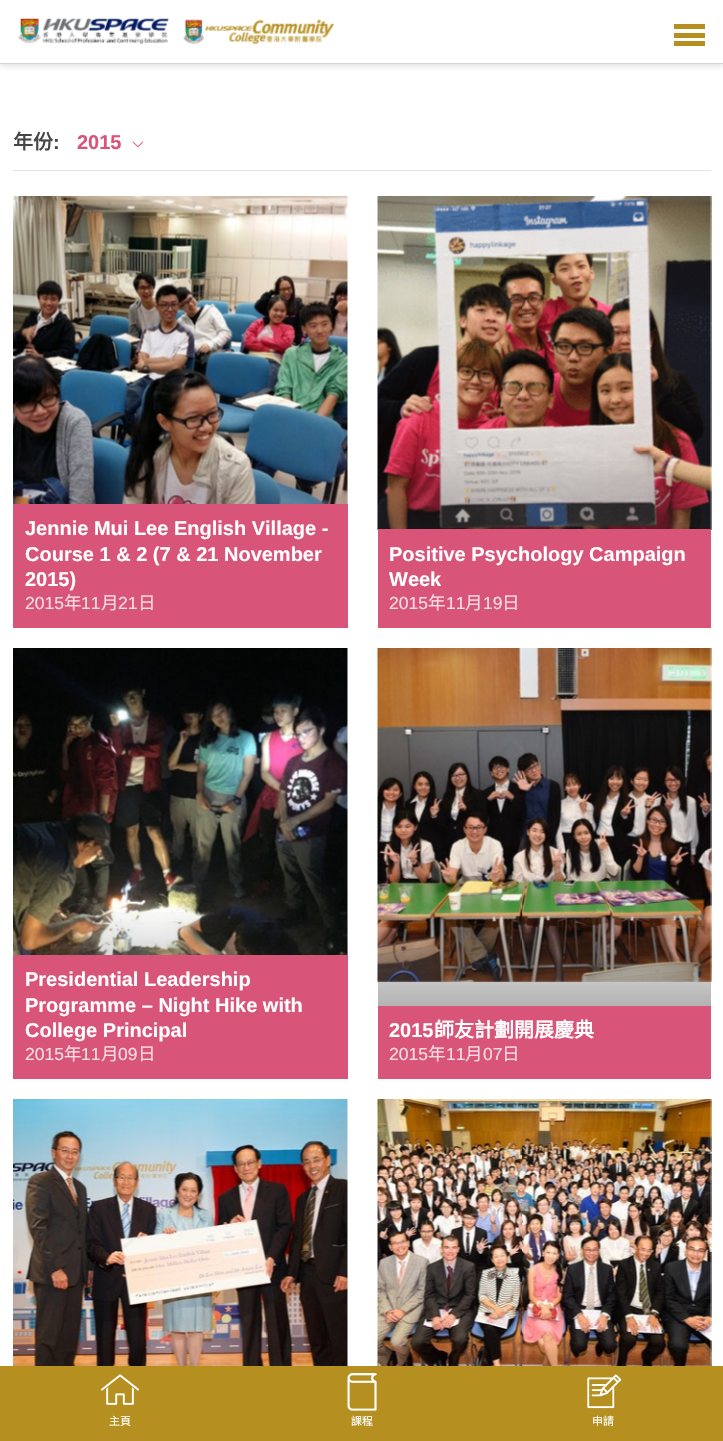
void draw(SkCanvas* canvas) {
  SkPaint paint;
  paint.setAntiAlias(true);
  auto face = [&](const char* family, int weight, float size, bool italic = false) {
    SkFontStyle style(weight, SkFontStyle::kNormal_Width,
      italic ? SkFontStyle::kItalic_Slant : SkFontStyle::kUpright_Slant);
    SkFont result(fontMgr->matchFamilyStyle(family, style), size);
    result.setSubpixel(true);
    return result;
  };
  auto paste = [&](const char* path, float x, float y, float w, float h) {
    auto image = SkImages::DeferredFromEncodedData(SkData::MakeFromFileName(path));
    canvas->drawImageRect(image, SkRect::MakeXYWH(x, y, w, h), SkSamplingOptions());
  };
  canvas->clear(0xffffffff);
  paint.setColor(0x26323232);
  paint.setMaskFilter(SkMaskFilter::MakeBlur(kNormal_SkBlurStyle, 3));
  canvas->drawRect(SkRect::MakeXYWH(0, 3, 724, 63), paint);
  paint.setMaskFilter(nullptr);
  paint.setColor(0xffffffff);
  canvas->drawRect(SkRect::MakeXYWH(0, 0, 723, 63), paint);
  paint.setColor(0xffd4d4d4);
  canvas->drawRect(SkRect::MakeXYWH(0, 63, 723, 1), paint);
  paste("img/1.png", 18, 18, 151, 26);
  paste("img/2.png", 183, 19, 151, 25);
  {
    const struct { float x, y, w, h; SkColor color; } items[] = {
      {674, 24, 31, 5, 0xffb58f20},
      {674, 33, 31, 5, 0xffb58f20},
      {674, 41, 31, 5, 0xffb58f20},
      {13, 170, 698, 1, 0xffe1e1e1},
    };
    for (auto [x, y, w, h, color] : items) {
      paint.setColor(color);
      canvas->drawRect(SkRect::MakeXYWH(x, y, w, h), paint);
    }
  }
  paste("img/3.png", 132, 141, 12, 7);
  paste("img/4.png", 13, 196, 335, 308);
  {
    const SkColor colors[] = {0x00ffffff, 0x00333333, 0xa6333333};
    const float stops[] = {0, 0.6f, 1};
    const SkPoint ends[] = {{180, 196}, {180, 628}};
    paint.setShader(SkGradientShader::MakeLinear(ends, colors, stops, 3, SkTileMode::kClamp));
    paint.setAlpha(255);
  }
  canvas->drawRect(SkRect::MakeXYWH(13, 461, 335, 43), paint);
  paint.setShader(nullptr);
  paint.setColor(0xffd85478);
  canvas->drawRect(SkRect::MakeXYWH(13, 504, 335, 124), paint);
  paste("img/5.png", 377, 196, 335, 334);
  {
    const SkColor colors[] = {0x00ffffff, 0x00333333, 0xa6333333};
    const float stops[] = {0, 0.6f, 1};
    const SkPoint ends[] = {{544, 196}, {544, 628}};
    paint.setShader(SkGradientShader::MakeLinear(ends, colors, stops, 3, SkTileMode::kClamp));
    paint.setAlpha(255);
  }
  canvas->drawRect(SkRect::MakeXYWH(378, 461, 333, 68), paint);
  paint.setShader(nullptr);
  paint.setColor(0xffd85478);
  canvas->drawRect(SkRect::MakeXYWH(378, 529, 333, 99), paint);
  paste("img/6.png", 13, 648, 335, 307);
  {
    const SkColor colors[] = {0x00ffffff, 0x00333333, 0xa6333333};
    const float stops[] = {0, 0.6f, 1};
    const SkPoint ends[] = {{180, 648}, {180, 1079}};
    paint.setShader(SkGradientShader::MakeLinear(ends, colors, stops, 3, SkTileMode::kClamp));
    paint.setAlpha(255);
  }
  canvas->drawRect(SkRect::MakeXYWH(13, 912, 335, 43), paint);
  paint.setShader(nullptr);
  paint.setColor(0xffd85478);
  canvas->drawRect(SkRect::MakeXYWH(13, 955, 335, 124), paint);
  paste("img/7.png", 377, 648, 335, 334);
  {
    const SkColor colors[] = {0x00ffffff, 0x00333333, 0xa6333333};
    const float stops[] = {0, 0.6f, 1};
    const SkPoint ends[] = {{544, 648}, {544, 1079}};
    paint.setShader(SkGradientShader::MakeLinear(ends, colors, stops, 3, SkTileMode::kClamp));
    paint.setAlpha(255);
  }
  canvas->drawRect(SkRect::MakeXYWH(378, 912, 333, 94), paint);
  paint.setShader(nullptr);
  paint.setColor(0xffd85478);
  canvas->drawRect(SkRect::MakeXYWH(378, 1006, 333, 73), paint);
  paste("img/8.png", 13, 1099, 335, 267);
  {
    const SkColor colors[] = {0x00ffffff, 0x00333333, 0xa6333333};
    const float stops[] = {0, 0.6f, 1};
    const SkPoint ends[] = {{180, 1099}, {180, 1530}};
    paint.setShader(SkGradientShader::MakeLinear(ends, colors, stops, 3, SkTileMode::kClamp));
    paint.setAlpha(255);
  }
  canvas->drawRect(SkRect::MakeXYWH(13, 1363, 335, 3), paint);
  paste("img/9.png", 377, 1099, 335, 267);
  {
    const SkColor colors[] = {0x00ffffff, 0x00333333, 0xa6333333};
    const float stops[] = {0, 0.6f, 1};
    const SkPoint ends[] = {{544, 1099}, {544, 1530}};
    paint.setShader(SkGradientShader::MakeLinear(ends, colors, stops, 3, SkTileMode::kClamp));
    paint.setAlpha(255);
  }
  canvas->drawRect(SkRect::MakeXYWH(378, 1363, 333, 3), paint);
  paint.setShader(nullptr);
  paint.setColor(0xffb58f20);
  canvas->drawRect(SkRect::MakeXYWH(0, 1366, 723, 75), paint);
  paste("img/10.png", 101, 1374, 38, 31);
  paste("img/11.png", 347, 1373, 30, 38);
  paste("img/12.png", 587, 1374, 35, 35);
  auto f0 = face("Noto Sans CJK HK", 700, 20);
  paint.setColor(0xff474646);
  canvas->drawString("年份", 13, 149, f0, paint);
  auto f1 = face("Liberation Sans", 700, 20);
  canvas->drawString(":", 53, 149, f1, paint);
  paint.setColor(0xffd85478);
  canvas->drawString("2015", 77, 149, f1, paint);
  paint.setColor(0xffffffff);
  {
    const struct { const char* s; float x, y; } items[] = {
      {"Jennie Mui Lee English Village -", 25, 535},
      {"Course 1 & 2 (7 & 21 November", 25, 561},
      {"2015)", 25, 586},
    };
    for (auto [s, x, y] : items) {
      canvas->drawString(s, x, y, f1, paint);
    }
  }
  auto f2 = face("Liberation Sans", 400, 17.5f);
  paint.setColor(0xfff7dde4);
  canvas->drawString("2015", 25, 609, f2, paint);
  auto f3 = face("Noto Sans CJK HK", 400, 17.5f);
  canvas->drawString("年", 64, 609, f3, paint);
  canvas->drawString("11", 81, 609, f2, paint);
  canvas->drawString("月", 101, 609, f3, paint);
  canvas->drawString("21", 118, 609, f2, paint);
  canvas->drawString("日", 138, 609, f3, paint);
  paint.setColor(0xffffffff);
  canvas->drawString("Positive Psychology Campaign", 389, 561, f1, paint);
  canvas->drawString("Week", 389, 586, f1, paint);
  paint.setColor(0xfff7dde4);
  canvas->drawString("2015", 389, 609, f2, paint);
  canvas->drawString("年", 428, 609, f3, paint);
  canvas->drawString("11", 446, 609, f2, paint);
  canvas->drawString("月", 465, 609, f3, paint);
  canvas->drawString("19", 483, 609, f2, paint);
  canvas->drawString("日", 502, 609, f3, paint);
  paint.setColor(0xffffffff);
  {
    const struct { const char* s; float x, y; } items[] = {
      {"Presidential Leadership", 25, 986},
      {"Programme – Night Hike with", 25, 1012},
      {"College Principal", 25, 1037},
    };
    for (auto [s, x, y] : items) {
      canvas->drawString(s, x, y, f1, paint);
    }
  }
  paint.setColor(0xfff7dde4);
  canvas->drawString("2015", 25, 1060, f2, paint);
  canvas->drawString("年", 64, 1060, f3, paint);
  canvas->drawString("11", 81, 1060, f2, paint);
  canvas->drawString("月", 101, 1060, f3, paint);
  canvas->drawString("09", 118, 1060, f2, paint);
  canvas->drawString("日", 138, 1060, f3, paint);
  paint.setColor(0xffffffff);
  canvas->drawString("2015", 389, 1037, f1, paint);
  canvas->drawString("師友計劃開展慶典", 434, 1037, f0, paint);
  paint.setColor(0xfff7dde4);
  canvas->drawString("2015", 389, 1060, f2, paint);
  canvas->drawString("年", 428, 1060, f3, paint);
  canvas->drawString("11", 446, 1060, f2, paint);
  canvas->drawString("月", 465, 1060, f3, paint);
  canvas->drawString("07", 483, 1060, f2, paint);
  canvas->drawString("日", 502, 1060, f3, paint);
  auto f4 = face("Noto Sans CJK HK", 400, 11);
  paint.setColor(0xffffffff);
  {
    const struct { const char* s; float x, y; } items[] = {
      {"主頁", 109, 1425},
      {"課程", 351, 1425},
      {"申請", 592, 1425},
    };
    for (auto [s, x, y] : items) {
      canvas->drawString(s, x, y, f4, paint);
    }
  }
}
